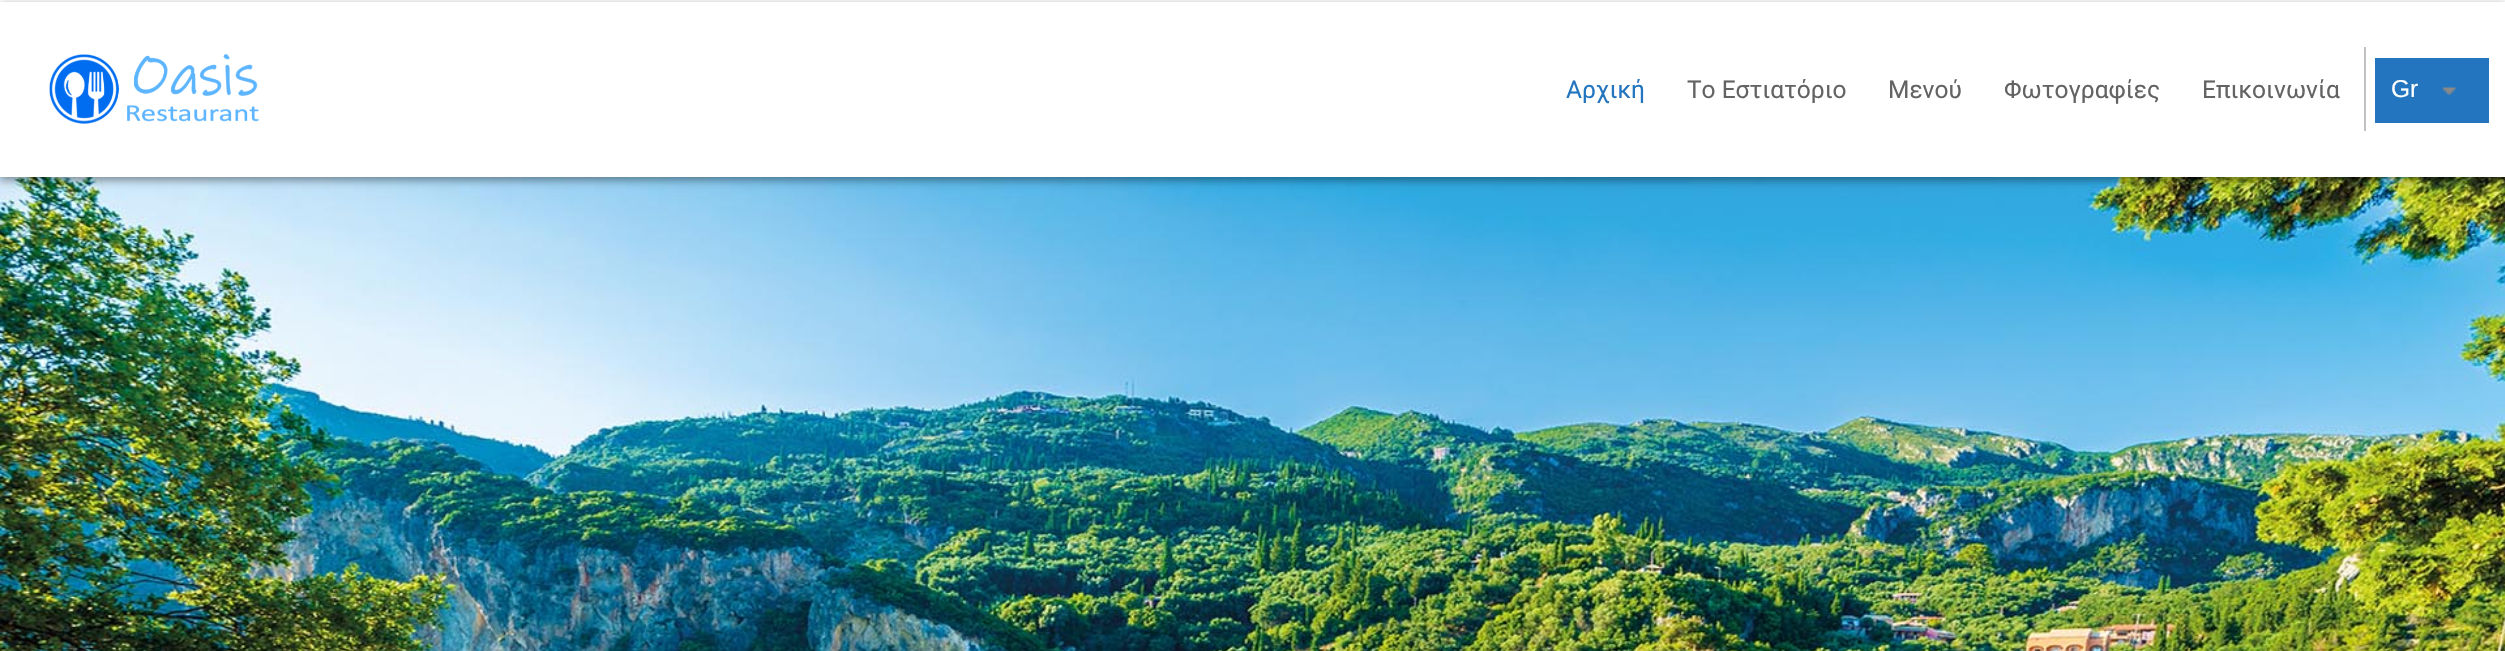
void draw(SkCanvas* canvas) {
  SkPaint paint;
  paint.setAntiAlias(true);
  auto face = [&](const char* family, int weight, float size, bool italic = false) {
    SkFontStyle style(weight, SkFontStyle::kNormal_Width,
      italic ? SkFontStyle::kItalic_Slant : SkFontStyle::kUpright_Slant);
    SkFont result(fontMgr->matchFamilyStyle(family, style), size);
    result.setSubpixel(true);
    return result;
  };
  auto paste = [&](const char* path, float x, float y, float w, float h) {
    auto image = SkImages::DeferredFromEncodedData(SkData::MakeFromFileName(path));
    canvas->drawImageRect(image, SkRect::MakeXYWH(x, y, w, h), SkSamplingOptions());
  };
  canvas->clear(0xffffffff);
  paste("img/3.png", 0, 177, 2505, 474);
  paint.setColor(0x6e000000);
  paint.setMaskFilter(SkMaskFilter::MakeBlur(kNormal_SkBlurStyle, 4.5f));
  canvas->drawRect(SkRect::MakeXYWH(0, 5, 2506, 175), paint);
  paint.setMaskFilter(nullptr);
  paint.setColor(0xffffffff);
  canvas->drawRect(SkRect::MakeXYWH(0, 2, 2505, 175), paint);
  paste("img/1.png", 49, 53, 210, 71);
  paint.setColor(0xffc1c1c1);
  canvas->drawRect(SkRect::MakeXYWH(2364, 47, 2, 84), paint);
  paint.setColor(0xff2275be);
  canvas->drawRect(SkRect::MakeXYWH(2375, 58, 114, 65), paint);
  paste("img/2.png", 2442, 87, 14, 8);
  auto f0 = face("Roboto", 400, 24.5f);
  canvas->drawString("Αρχική", 1566, 98, f0, paint);
  paint.setColor(0xff636363);
  {
    const struct { const char* s; float x, y; } items[] = {
      {"Το Εστιατόριο", 1687, 98},
      {"Μενού", 1888, 98},
      {"Φωτογραφίες", 2004, 98},
      {"Επικοινωνία", 2202, 98},
    };
    for (auto [s, x, y] : items) {
      canvas->drawString(s, x, y, f0, paint);
    }
  }
  auto f1 = face("Liberation Sans", 400, 24.5f);
  paint.setColor(0xffffffff);
  canvas->drawString("Gr", 2391, 97, f1, paint);
}
